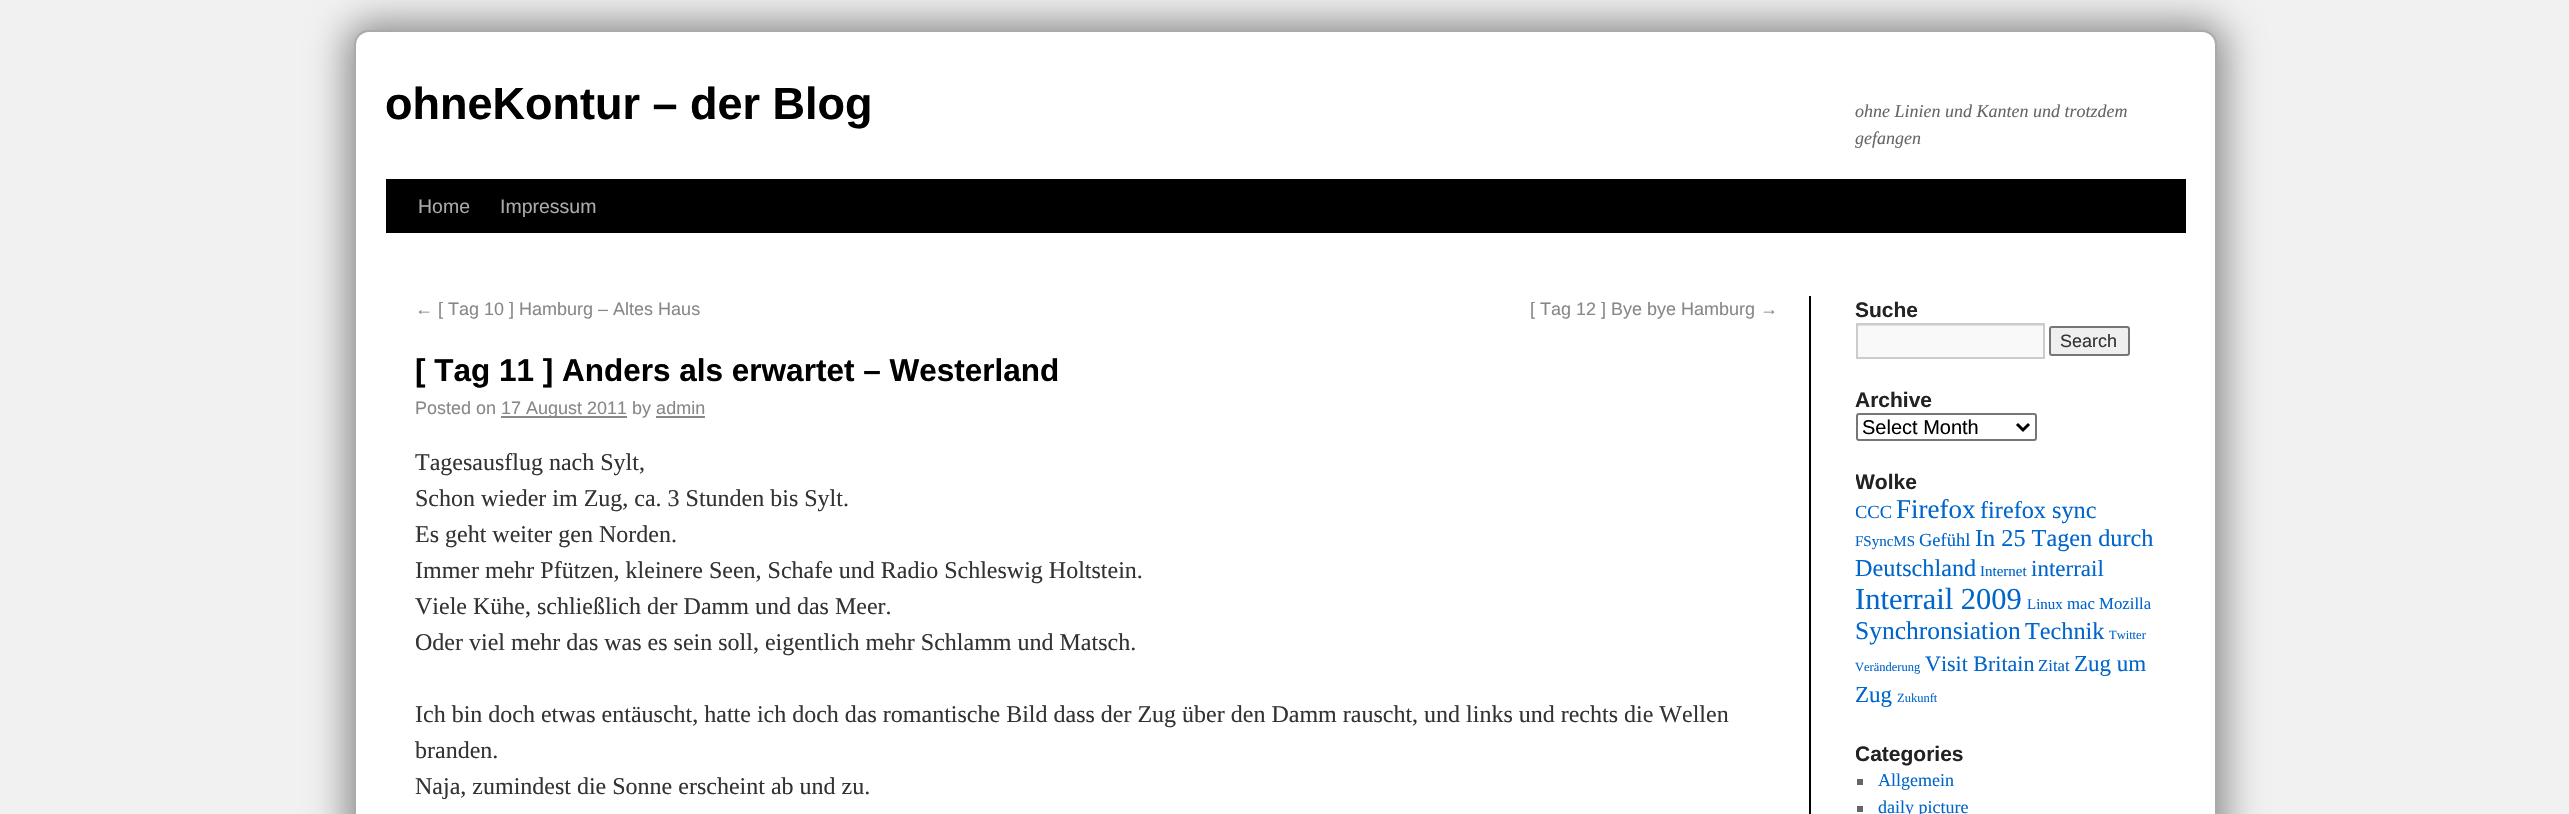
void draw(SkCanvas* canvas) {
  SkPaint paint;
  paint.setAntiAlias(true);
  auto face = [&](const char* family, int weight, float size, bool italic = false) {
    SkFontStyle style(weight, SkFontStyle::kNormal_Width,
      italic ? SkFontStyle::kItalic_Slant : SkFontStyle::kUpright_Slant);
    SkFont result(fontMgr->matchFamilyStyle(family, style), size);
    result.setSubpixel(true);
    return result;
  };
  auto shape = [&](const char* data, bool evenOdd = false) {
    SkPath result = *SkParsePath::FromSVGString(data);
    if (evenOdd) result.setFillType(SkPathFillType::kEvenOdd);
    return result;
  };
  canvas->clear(0xfff1f1f1);
  paint.setColor(0xff888888);
  paint.setMaskFilter(SkMaskFilter::MakeBlur(kNormal_SkBlurStyle, 19));
  canvas->drawRoundRect(SkRect::MakeXYWH(347, 23, 1878, 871), 23, 23, paint);
  paint.setMaskFilter(nullptr);
  paint.setColor(0xffffffff);
  canvas->drawRoundRect(SkRect::MakeXYWH(355, 31, 1861, 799), 14, 14, paint);
  paint.setStroke(true);
  paint.setStrokeWidth(2);
  paint.setColor(0xffaaaaaa);
  canvas->drawRoundRect(SkRect::MakeXYWH(355, 31, 1861, 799), 14, 14, paint);
  paint.setStroke(false);
  {
    const struct { float x, y, w, h; SkColor color; } items[] = {
      {386, 179, 1800, 54, 0xff000000},
      {1809, 296, 2, 518, 0xff000000},
      {501, 416, 126, 2, 0xff888888},
      {656, 416, 49, 2, 0xff888888},
      {1858, 326, 185, 31, 0xfff9f9f9},
    };
    for (auto [x, y, w, h, color] : items) {
      paint.setColor(color);
      canvas->drawRect(SkRect::MakeXYWH(x, y, w, h), paint);
    }
  }
  canvas->save();
  canvas->clipRect(SkRect::MakeXYWH(1857, 324, 186, 33));
  paint.setColor(0xffe0e0e0);
  canvas->drawPath(shape("M1708 176H2192V506H1708ZM1858 326H2044V358H1858Z", true), paint);
  canvas->restore();
  paint.setStroke(true);
  paint.setColor(0xffcccccc);
  canvas->drawRect(SkRect::MakeXYWH(1857, 324, 187, 34), paint);
  paint.setStroke(false);
  paint.setColor(0xffefefef);
  canvas->drawRoundRect(SkRect::MakeXYWH(2050, 327, 79, 28), 2, 2, paint);
  paint.setStroke(true);
  paint.setColor(0xff767676);
  canvas->drawRoundRect(SkRect::MakeXYWH(2050, 327, 79, 28), 2, 2, paint);
  canvas->drawRoundRect(SkRect::MakeXYWH(1857, 414, 179, 26), 2, 2, paint);
  paint.setStrokeWidth(3);
  paint.setColor(0xff000000);
  canvas->drawPath(shape("M2017 424L2023 430L2029 424"), paint);
  paint.setStroke(false);
  paint.setColor(0xff666666);
  canvas->drawRect(SkRect::MakeXYWH(1857, 779, 6, 6), paint);
  canvas->drawRect(SkRect::MakeXYWH(1857, 806, 6, 6), paint);
  auto f0 = face("Liberation Sans", 700, 45);
  paint.setColor(0xff000000);
  canvas->drawString("ohneKontur – der Blog", 385, 119, f0, paint);
  auto f1 = face("Liberation Serif", 400, 18, true);
  paint.setColor(0xff666666);
  canvas->drawString("ohne Linien und Kanten und trotzdem", 1855, 117, f1, paint);
  canvas->drawString("gefangen", 1855, 144, f1, paint);
  auto f2 = face("Liberation Sans", 400, 19.5f);
  paint.setColor(0xffaaaaaa);
  canvas->drawString("Home", 418, 213, f2, paint);
  canvas->drawString("Impressum", 500, 213, f2, paint);
  auto f3 = face("Liberation Sans", 400, 18);
  paint.setColor(0xff888888);
  canvas->drawString("← [ Tag 10 ] Hamburg – Altes Haus", 415, 315, f3, paint);
  canvas->drawString("[ Tag 12 ] Bye bye Hamburg →", 1530, 315, f3, paint);
  auto f4 = face("Liberation Sans", 700, 31.5f);
  paint.setColor(0xff000000);
  canvas->drawString("[ Tag 11 ] Anders als erwartet – Westerland", 415, 381, f4, paint);
  paint.setColor(0xff888888);
  canvas->drawString("Posted on", 415, 414, f3, paint);
  canvas->drawString("17 August 2011 by admin", 501, 414, f3, paint);
  auto f5 = face("Liberation Serif", 400, 24);
  paint.setColor(0xff333333);
  {
    const struct { const char* s; float x, y; } items[] = {
      {"Tagesausflug nach Sylt,", 415, 470},
      {"Schon wieder im Zug, ca. 3 Stunden bis Sylt.", 415, 506},
      {"Es geht weiter gen Norden.", 415, 542},
      {"Immer mehr Pfützen, kleinere Seen, Schafe und Radio Schleswig Holtstein.", 415, 578},
      {"Viele Kühe, schließlich der Damm und das Meer.", 415, 614},
      {"Oder viel mehr das was es sein soll, eigentlich mehr Schlamm und Matsch.", 415, 650},
      {"Ich bin doch etwas entäuscht, hatte ich doch das romantische Bild dass der Zug über den Damm rauscht, und links und rechts die Wellen", 415, 722},
      {"branden.", 415, 758},
      {"Naja, zumindest die Sonne erscheint ab und zu.", 415, 794},
    };
    for (auto [s, x, y] : items) {
      canvas->drawString(s, x, y, f5, paint);
    }
  }
  auto f6 = face("Liberation Sans", 700, 21);
  paint.setColor(0xff222222);
  canvas->drawString("Suche", 1855, 317, f6, paint);
  paint.setColor(0xff333333);
  canvas->drawString("Search", 2060, 347, f3, paint);
  paint.setColor(0xff222222);
  canvas->drawString("Archive", 1855, 407, f6, paint);
  auto f7 = face("Liberation Sans", 400, 20);
  paint.setColor(0xff000000);
  canvas->drawString("Select Month", 1862, 434, f7, paint);
  canvas->save();
  canvas->clipRect(SkRect::MakeXYWH(1856, 296, 330, 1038));
  paint.setColor(0xff222222);
  canvas->drawString("Wolke", 1855, 489, f6, paint);
  auto f8 = face("Liberation Serif", 400, 18.5f);
  paint.setColor(0xff0066cc);
  canvas->drawString("CCC", 1855, 518, f8, paint);
  canvas->restore();
  auto f9 = face("Liberation Serif", 400, 27);
  canvas->drawString("Firefox", 1896, 518, f9, paint);
  auto f10 = face("Liberation Serif", 400, 24.25f);
  canvas->drawString("firefox sync", 1980, 518, f10, paint);
  auto f11 = face("Liberation Serif", 400, 15);
  canvas->drawString("FSyncMS", 1855, 546, f11, paint);
  canvas->drawString("Gefühl", 1919, 546, f8, paint);
  canvas->drawString("In 25 Tagen durch", 1975, 546, f10, paint);
  canvas->drawString("Deutschland", 1855, 576, f10, paint);
  canvas->drawString("Internet", 1980, 576, f11, paint);
  auto f12 = face("Liberation Serif", 400, 23);
  canvas->drawString("interrail", 2031, 576, f12, paint);
  auto f13 = face("Liberation Serif", 400, 30.5f);
  canvas->drawString("Interrail 2009", 1855, 609, f13, paint);
  canvas->drawString("Linux", 2027, 609, f11, paint);
  auto f14 = face("Liberation Serif", 400, 16.75f);
  canvas->drawString("mac Mozilla", 2067, 609, f14, paint);
  auto f15 = face("Liberation Serif", 400, 25.5f);
  canvas->drawString("Synchronsiation", 1855, 639, f15, paint);
  canvas->drawString("Technik", 2025, 639, f10, paint);
  auto f16 = face("Liberation Serif", 400, 12.5f);
  canvas->drawString("Twitter", 2109, 639, f16, paint);
  canvas->drawString("Veränderung", 1855, 671, f16, paint);
  auto f17 = face("Liberation Serif", 400, 22);
  canvas->drawString("Visit Britain", 1925, 671, f17, paint);
  canvas->drawString("Zitat", 2038, 671, f14, paint);
  canvas->drawString("Zug um", 2074, 671, f12, paint);
  canvas->drawString("Zug", 1855, 702, f12, paint);
  canvas->drawString("Zukunft", 1897, 702, f16, paint);
  canvas->save();
  canvas->clipRect(SkRect::MakeXYWH(1856, 296, 330, 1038));
  paint.setColor(0xff222222);
  canvas->drawString("Categories", 1855, 761, f6, paint);
  canvas->restore();
  auto f18 = face("Liberation Serif", 400, 18);
  paint.setColor(0xff0066cc);
  canvas->drawString("Allgemein", 1878, 786, f18, paint);
  canvas->drawString("daily picture", 1878, 813, f18, paint);
}
